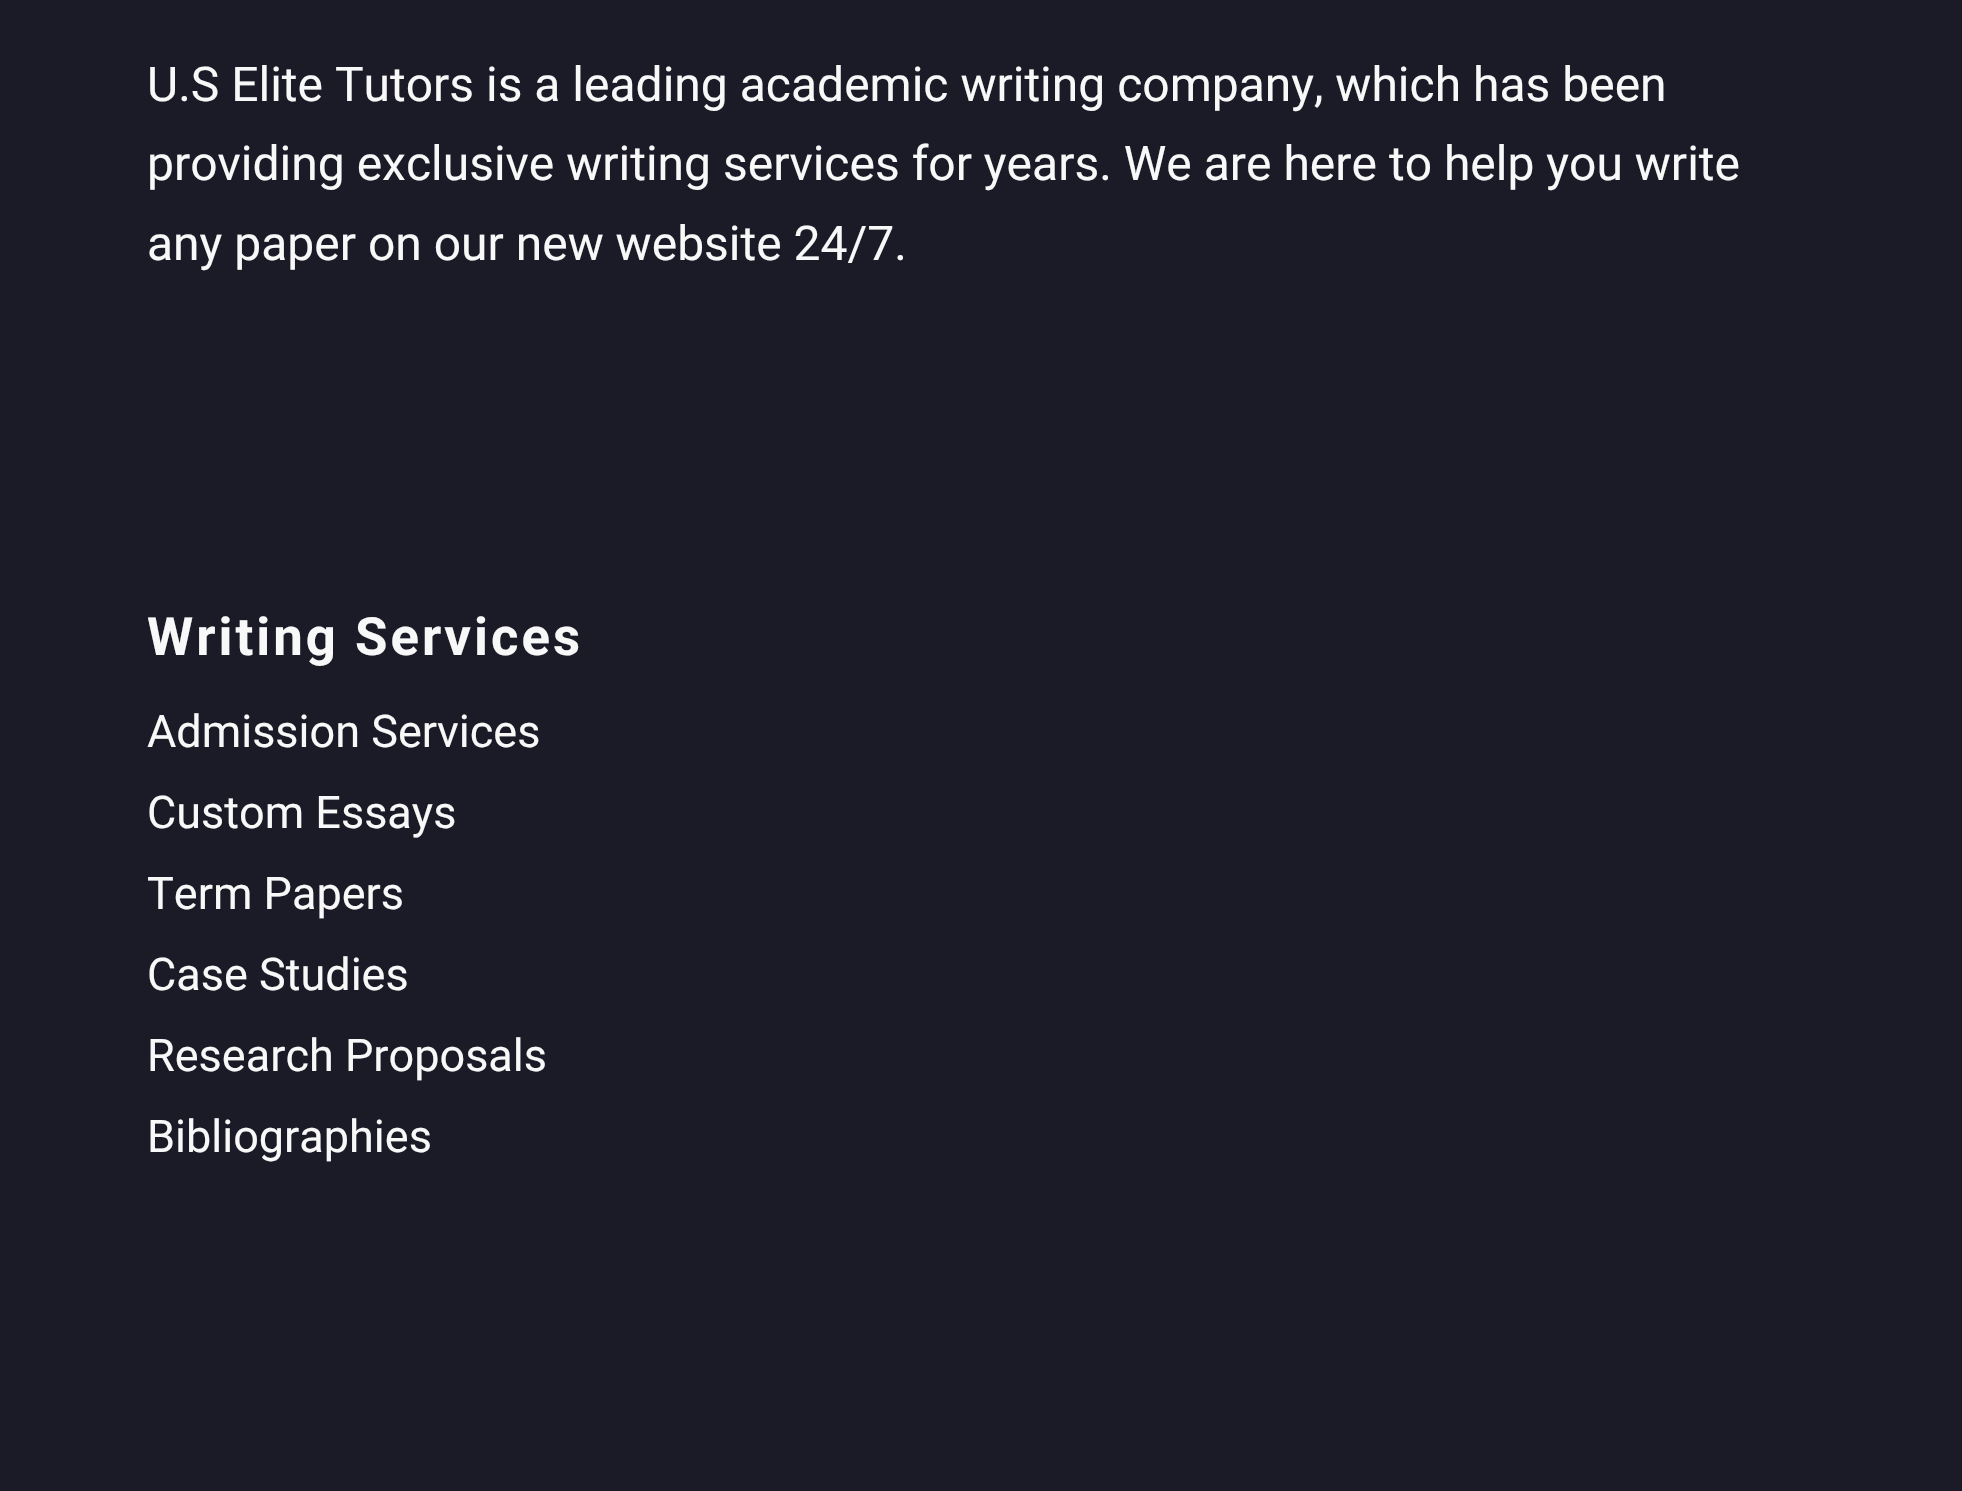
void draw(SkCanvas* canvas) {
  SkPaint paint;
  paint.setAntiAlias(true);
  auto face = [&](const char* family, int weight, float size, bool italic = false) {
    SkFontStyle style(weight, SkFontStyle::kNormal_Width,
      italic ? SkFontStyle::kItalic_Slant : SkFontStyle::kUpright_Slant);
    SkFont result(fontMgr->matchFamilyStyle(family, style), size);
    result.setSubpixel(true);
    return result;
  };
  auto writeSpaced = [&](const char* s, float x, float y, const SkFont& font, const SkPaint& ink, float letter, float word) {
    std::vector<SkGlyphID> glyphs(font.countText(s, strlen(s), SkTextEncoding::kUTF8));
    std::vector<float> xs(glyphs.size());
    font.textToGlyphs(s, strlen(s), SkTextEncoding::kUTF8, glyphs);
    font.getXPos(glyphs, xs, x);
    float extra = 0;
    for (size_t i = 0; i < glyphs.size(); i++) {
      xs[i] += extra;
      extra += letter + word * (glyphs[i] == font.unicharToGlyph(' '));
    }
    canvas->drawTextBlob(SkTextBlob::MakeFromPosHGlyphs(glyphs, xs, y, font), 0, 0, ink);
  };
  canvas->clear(0xff1a1b27);
  auto f0 = face("Roboto", 400, 48);
  paint.setColor(0xfff8f8f8);
  {
    const struct { const char* s; float x, y; } items[] = {
      {"U.S Elite Tutors is a leading academic writing company, which has been", 147, 101},
      {"providing exclusive writing services for years. We are here to help you write", 147, 180},
      {"any paper on our new website 24/7.", 147, 260},
    };
    for (auto [s, x, y] : items) {
      canvas->drawString(s, x, y, f0, paint);
    }
  }
  auto f1 = face("Roboto", 700, 52.75f);
  writeSpaced("Writing Services", 147, 655, f1, paint, 3, 0);
  auto f2 = face("Roboto", 400, 45);
  {
    const struct { const char* s; float x, y; } items[] = {
      {"Admission Services", 147, 747},
      {"Custom Essays", 147, 828},
      {"Term Papers", 147, 909},
      {"Case Studies", 147, 990},
      {"Research Proposals", 147, 1071},
      {"Bibliographies", 147, 1152},
    };
    for (auto [s, x, y] : items) {
      canvas->drawString(s, x, y, f2, paint);
    }
  }
}
